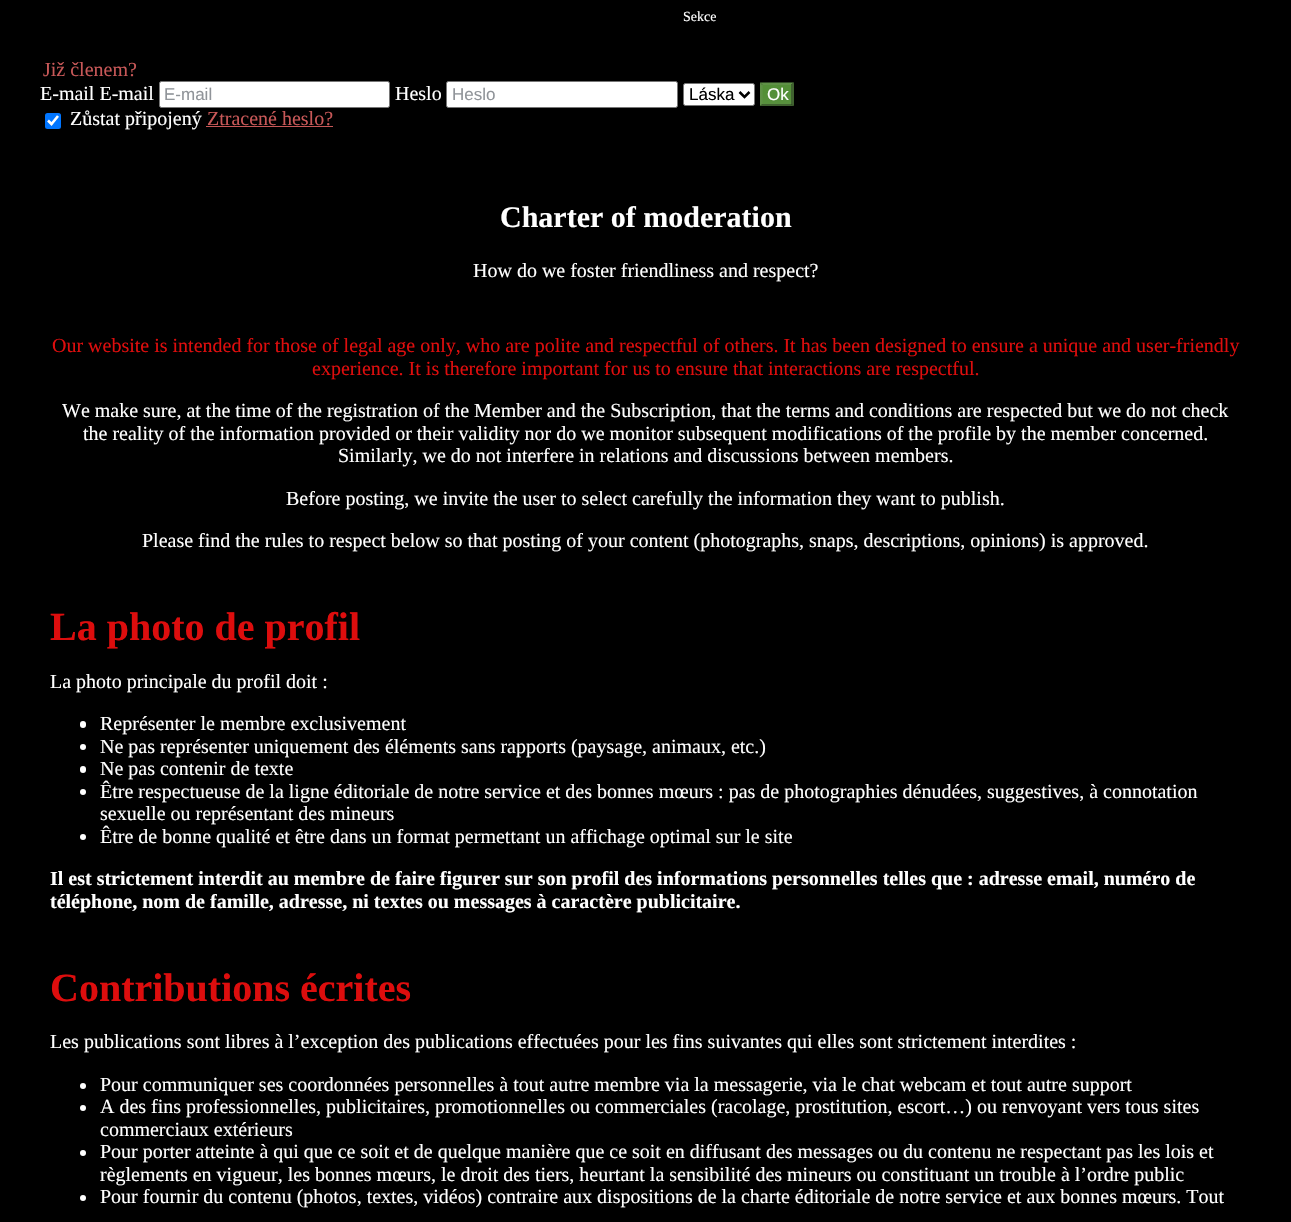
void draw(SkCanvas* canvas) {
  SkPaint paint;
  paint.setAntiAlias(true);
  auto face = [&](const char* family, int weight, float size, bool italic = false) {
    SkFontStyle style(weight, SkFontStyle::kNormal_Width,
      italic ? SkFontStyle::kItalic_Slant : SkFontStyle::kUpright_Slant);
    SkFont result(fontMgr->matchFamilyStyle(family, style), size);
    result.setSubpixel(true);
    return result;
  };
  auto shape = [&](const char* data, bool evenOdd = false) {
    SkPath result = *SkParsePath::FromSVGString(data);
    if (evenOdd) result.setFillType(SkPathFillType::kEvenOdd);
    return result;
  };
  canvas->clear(0xff000000);
  paint.setColor(0xffffffff);
  canvas->drawRoundRect(SkRect::MakeXYWH(159.5f, 81.5f, 230, 26), 2, 2, paint);
  paint.setStroke(true);
  paint.setStrokeWidth(1);
  paint.setColor(0xff767676);
  canvas->drawRoundRect(SkRect::MakeXYWH(159.5f, 81.5f, 230, 26), 2, 2, paint);
  paint.setStroke(false);
  paint.setColor(0xffffffff);
  canvas->drawRoundRect(SkRect::MakeXYWH(446.5f, 81.5f, 231, 26), 2, 2, paint);
  paint.setStroke(true);
  paint.setColor(0xff767676);
  canvas->drawRoundRect(SkRect::MakeXYWH(446.5f, 81.5f, 231, 26), 2, 2, paint);
  paint.setStroke(false);
  paint.setColor(0xffffffff);
  canvas->drawRoundRect(SkRect::MakeXYWH(683.5f, 83.5f, 71, 22), 2, 2, paint);
  paint.setStroke(true);
  paint.setColor(0xff767676);
  canvas->drawRoundRect(SkRect::MakeXYWH(683.5f, 83.5f, 71, 22), 2, 2, paint);
  paint.setStrokeWidth(2.5f);
  paint.setColor(0xff000000);
  canvas->drawPath(shape("M739.5 92L744.5 97L749.5 92"), paint);
  paint.setStroke(false);
  {
    const SkColor colors[] = {0xff538f37, 0xff58903e};
    const float stops[] = {0.4f, 1};
    const SkPoint ends[] = {{777, 85}, {777, 104}};
    paint.setShader(SkGradientShader::MakeLinear(ends, colors, stops, 2, SkTileMode::kClamp));
    paint.setAlpha(255);
  }
  canvas->drawRect(SkRect::MakeXYWH(762, 85, 29, 19), paint);
  paint.setShader(nullptr);
  paint.setColor(0xff5e9146);
  canvas->drawPath(shape("M760 82.5H794L791 85H762.5Z"), paint);
  paint.setColor(0xff3f612f);
  canvas->drawPath(shape("M794 82.5V106L791 104V85Z"), paint);
  canvas->drawPath(shape("M794 106H760L762.5 104H791Z"), paint);
  paint.setColor(0xff5e9146);
  canvas->drawPath(shape("M760 106V82.5L762.5 85V104Z"), paint);
  paint.setColor(0xff0075ff);
  canvas->drawRoundRect(SkRect::MakeXYWH(45, 113, 16, 16), 2.5f, 2.5f, paint);
  paint.setStroke(true);
  paint.setStrokeWidth(2.6f);
  paint.setColor(0xffffffff);
  canvas->drawPath(shape("M48 120.5L51.5 124L58 116"), paint);
  paint.setStroke(false);
  paint.setColor(0xffc85858);
  canvas->drawRect(SkRect::MakeXYWH(206, 126, 127, 1), paint);
  paint.setColor(0xffffffff);
  canvas->drawRoundRect(SkRect::MakeXYWH(80, 721, 6, 7), 3, 3, paint);
  canvas->drawCircle(83, 747, 3, paint);
  canvas->drawRoundRect(SkRect::MakeXYWH(80, 766, 6, 7), 3, 3, paint);
  canvas->drawCircle(83, 792, 3, paint);
  canvas->drawCircle(83, 837, 3, paint);
  canvas->drawCircle(83, 1086, 3, paint);
  canvas->drawCircle(83, 1108, 3, paint);
  canvas->drawCircle(83, 1153, 3, paint);
  canvas->drawCircle(83, 1198, 3, paint);
  auto f0 = face("Liberation Serif", 400, 20);
  canvas->drawString("E-mail E-mail", 40, 100, f0, paint);
  auto f1 = face("Liberation Sans", 400, 17);
  paint.setColor(0xff909499);
  canvas->drawString("E-mail", 164, 100, f1, paint);
  paint.setColor(0xffffffff);
  canvas->drawString("Heslo", 395, 100, f0, paint);
  paint.setColor(0xff909499);
  canvas->drawString("Heslo", 452, 100, f1, paint);
  auto f2 = face("Liberation Serif", 400, 14);
  paint.setColor(0xffffffff);
  canvas->drawString("Sekce", 683, 21, f2, paint);
  paint.setColor(0xff000000);
  canvas->drawString("Láska", 689, 100, f1, paint);
  paint.setColor(0xffffffff);
  canvas->drawString("Ok", 767, 100, f1, paint);
  paint.setColor(0xffc85858);
  canvas->drawString("Již členem?", 43, 76, f0, paint);
  paint.setColor(0xffffffff);
  canvas->drawString("Zůstat připojený", 70, 125, f0, paint);
  paint.setColor(0xffc85858);
  canvas->drawString("Ztracené heslo?", 207, 125, f0, paint);
  auto f3 = face("Liberation Serif", 700, 30);
  paint.setColor(0xffffffff);
  canvas->drawString("Charter of moderation", 500, 227, f3, paint);
  canvas->drawString("How do we foster friendliness and respect?", 473, 277, f0, paint);
  paint.setColor(0xffdd0d0d);
  canvas->drawString("Our website is intended for those of legal age only, who are polite and respectful of others. It has been designed to ensure a unique and user-friendly", 52, 352, f0, paint);
  canvas->drawString("experience. It is therefore important for us to ensure that interactions are respectful.", 312, 375, f0, paint);
  paint.setColor(0xffffffff);
  {
    const struct { const char* s; float x, y; } items[] = {
      {"We make sure, at the time of the registration of the Member and the Subscription, that the terms and conditions are respected but we do not check", 62, 417},
      {"the reality of the information provided or their validity nor do we monitor subsequent modifications of the profile by the member concerned.", 83, 440},
      {"Similarly, we do not interfere in relations and discussions between members.", 338, 462},
      {"Before posting, we invite the user to select carefully the information they want to publish.", 286, 505},
      {"Please find the rules to respect below so that posting of your content (photographs, snaps, descriptions, opinions) is approved.", 142, 547},
    };
    for (auto [s, x, y] : items) {
      canvas->drawString(s, x, y, f0, paint);
    }
  }
  auto f4 = face("Liberation Serif", 700, 40);
  paint.setColor(0xffdd0d0d);
  canvas->drawString("La photo de profil", 50, 640, f4, paint);
  paint.setColor(0xffffffff);
  {
    const struct { const char* s; float x, y; } items[] = {
      {"La photo principale du profil doit :", 50, 688},
      {"Représenter le membre exclusivement", 100, 730},
      {"Ne pas représenter uniquement des éléments sans rapports (paysage, animaux, etc.)", 100, 753},
      {"Ne pas contenir de texte", 100, 775},
      {"Être respectueuse de la ligne éditoriale de notre service et des bonnes mœurs : pas de photographies dénudées, suggestives, à connotation", 100, 798},
      {"sexuelle ou représentant des mineurs", 100, 820},
      {"Être de bonne qualité et être dans un format permettant un affichage optimal sur le site", 100, 843},
    };
    for (auto [s, x, y] : items) {
      canvas->drawString(s, x, y, f0, paint);
    }
  }
  auto f5 = face("Liberation Serif", 700, 20);
  canvas->drawString("Il est strictement interdit au membre de faire figurer sur son profil des informations personnelles telles que : adresse email, numéro de", 50, 885, f5, paint);
  canvas->drawString("téléphone, nom de famille, adresse, ni textes ou messages à caractère publicitaire.", 50, 908, f5, paint);
  paint.setColor(0xffdd0d0d);
  canvas->drawString("Contributions écrites", 50, 1001, f4, paint);
  paint.setColor(0xffffffff);
  {
    const struct { const char* s; float x, y; } items[] = {
      {"Les publications sont libres à l’exception des publications effectuées pour les fins suivantes qui elles sont strictement interdites :", 50, 1048},
      {"Pour communiquer ses coordonnées personnelles à tout autre membre via la messagerie, via le chat webcam et tout autre support", 100, 1091},
      {"A des fins professionnelles, publicitaires, promotionnelles ou commerciales (racolage, prostitution, escort…) ou renvoyant vers tous sites", 100, 1113},
      {"commerciaux extérieurs", 100, 1136},
      {"Pour porter atteinte à qui que ce soit et de quelque manière que ce soit en diffusant des messages ou du contenu ne respectant pas les lois et", 100, 1158},
      {"règlements en vigueur, les bonnes mœurs, le droit des tiers, heurtant la sensibilité des mineurs ou constituant un trouble à l’ordre public", 100, 1181},
      {"Pour fournir du contenu (photos, textes, vidéos) contraire aux dispositions de la charte éditoriale de notre service et aux bonnes mœurs. Tout", 100, 1203},
    };
    for (auto [s, x, y] : items) {
      canvas->drawString(s, x, y, f0, paint);
    }
  }
}
